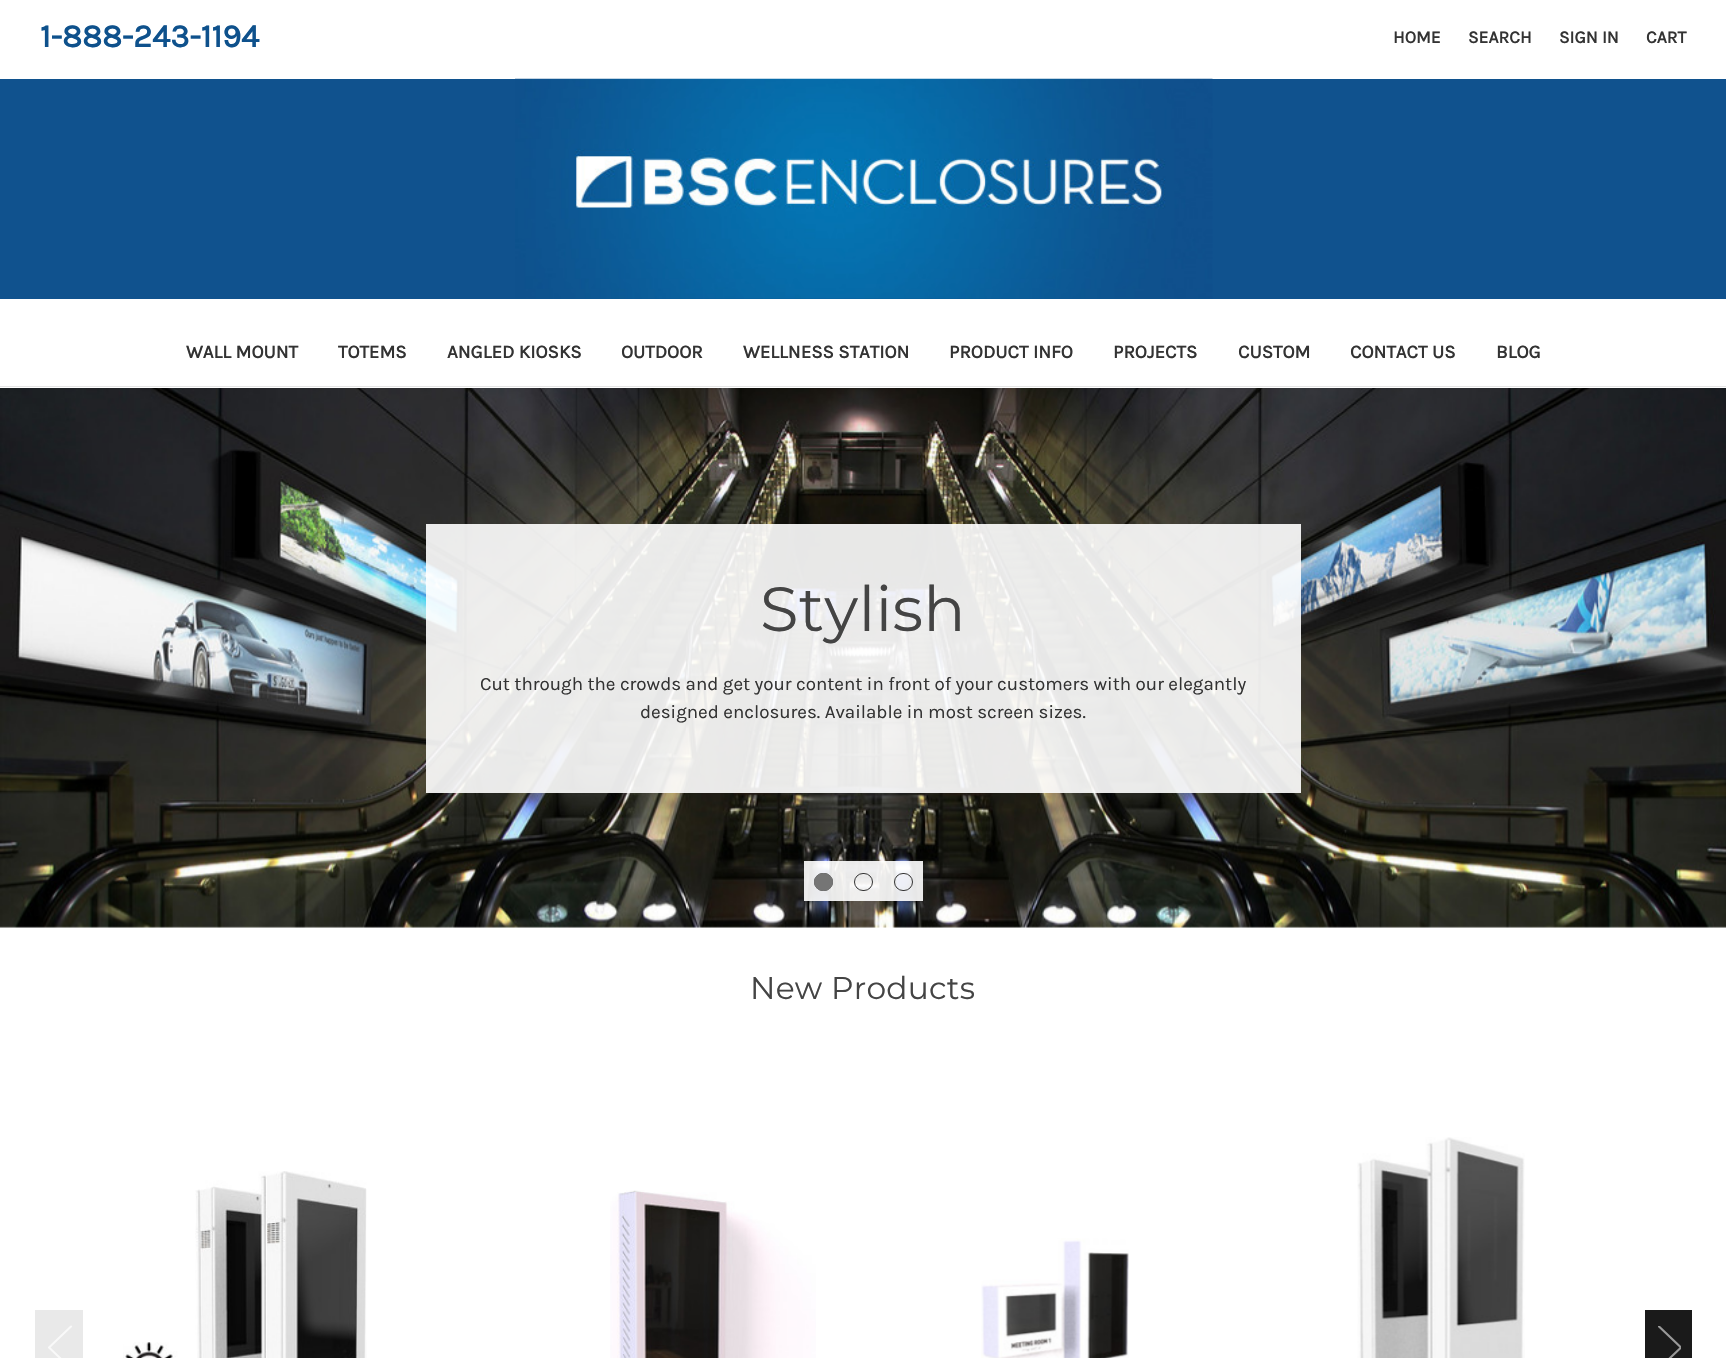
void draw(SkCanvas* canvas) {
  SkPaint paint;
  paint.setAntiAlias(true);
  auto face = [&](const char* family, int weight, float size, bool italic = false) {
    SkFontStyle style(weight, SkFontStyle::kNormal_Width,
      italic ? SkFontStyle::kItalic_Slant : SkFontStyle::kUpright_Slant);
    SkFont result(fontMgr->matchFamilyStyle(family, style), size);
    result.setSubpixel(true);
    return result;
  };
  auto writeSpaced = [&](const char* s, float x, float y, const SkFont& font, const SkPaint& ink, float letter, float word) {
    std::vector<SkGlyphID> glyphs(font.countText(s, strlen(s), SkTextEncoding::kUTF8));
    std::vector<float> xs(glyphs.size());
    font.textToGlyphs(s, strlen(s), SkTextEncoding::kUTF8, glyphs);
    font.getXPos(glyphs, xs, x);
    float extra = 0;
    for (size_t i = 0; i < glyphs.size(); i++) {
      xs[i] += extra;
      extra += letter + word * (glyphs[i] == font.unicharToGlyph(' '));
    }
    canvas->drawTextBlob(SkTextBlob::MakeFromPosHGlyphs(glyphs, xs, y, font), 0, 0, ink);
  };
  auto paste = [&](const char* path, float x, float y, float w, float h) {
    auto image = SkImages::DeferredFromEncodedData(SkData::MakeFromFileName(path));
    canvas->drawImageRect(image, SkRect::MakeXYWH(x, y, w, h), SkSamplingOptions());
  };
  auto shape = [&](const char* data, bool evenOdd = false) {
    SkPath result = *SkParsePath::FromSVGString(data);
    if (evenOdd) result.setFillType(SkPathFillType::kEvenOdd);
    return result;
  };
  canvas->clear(0xffffffff);
  paint.setColor(0xffe5e5e5);
  canvas->drawRect(SkRect::MakeXYWH(0, 386, 1726, 1), paint);
  paint.setColor(0xff10528e);
  canvas->drawRect(SkRect::MakeXYWH(0, 79, 1726, 220), paint);
  paste("img/1.png", 515, 78, 698, 221);
  paste("img/2.png", 0, 388, 1726, 540);
  paint.setColor(0xe6ffffff);
  canvas->drawRect(SkRect::MakeXYWH(426, 524, 875, 269), paint);
  canvas->drawRect(SkRect::MakeXYWH(804, 861, 40, 40), paint);
  paint.setStroke(true);
  paint.setStrokeWidth(1);
  paint.setColor(0xff333333);
  canvas->drawRoundRect(SkRect::MakeXYWH(814.5f, 873.5f, 18, 17), 8.5f, 8.5f, paint);
  paint.setStroke(false);
  paint.setColor(0xff757575);
  canvas->drawRoundRect(SkRect::MakeXYWH(814, 873, 19, 18), 9, 9, paint);
  paint.setColor(0xe6ffffff);
  canvas->drawRect(SkRect::MakeXYWH(844, 861, 39, 40), paint);
  paint.setStroke(true);
  paint.setColor(0xff333333);
  canvas->drawRoundRect(SkRect::MakeXYWH(854.5f, 873.5f, 18, 17), 8.5f, 8.5f, paint);
  paint.setStroke(false);
  paint.setColor(0xe6ffffff);
  canvas->drawRect(SkRect::MakeXYWH(883, 861, 40, 40), paint);
  paint.setStroke(true);
  paint.setColor(0xff333333);
  canvas->drawRoundRect(SkRect::MakeXYWH(894.5f, 873.5f, 18, 17), 8.5f, 8.5f, paint);
  paint.setStroke(false);
  paint.setColor(0xffe9e9e9);
  canvas->drawRect(SkRect::MakeXYWH(35, 1310, 48, 48), paint);
  paint.setStroke(true);
  paint.setStrokeWidth(2.1f);
  paint.setStrokeCap(SkPaint::kRound_Cap);
  paint.setStrokeJoin(SkPaint::kRound_Join);
  paint.setColor(0xfff9f9f9);
  canvas->drawPath(shape("M71 1326.5L49 1347.5L71 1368.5"), paint);
  paste("img/3.png", 123, 1171, 244, 187);
  paste("img/4.png", 610, 1190, 206, 168);
  paste("img/5.png", 981, 1238, 148, 120);
  paste("img/6.png", 1357, 1137, 168, 221);
  paint.setStroke(false);
  paint.setColor(0xff1a1a1a);
  canvas->drawRect(SkRect::MakeXYWH(1645, 1310, 47, 48), paint);
  canvas->save();
  canvas->clipRect(SkRect::MakeXYWH(1658, 1326, 23, 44));
  paint.setStroke(true);
  paint.setColor(0xff999999);
  canvas->drawPath(shape("M1659 1326.5L1681 1347.5L1659 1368.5"), paint);
  canvas->restore();
  auto f0 = face("Karla", 700, 32.5f);
  paint.setStroke(false);
  paint.setColor(0xff0e518c);
  canvas->drawString("1-888-243-1194", 40, 47, f0, paint);
  auto f1 = face("Karla", 700, 17.5f);
  paint.setColor(0xff333333);
  {
    const struct { const char* s; float x, y; } items[] = {
      {"HOME", 1393, 43},
      {"SEARCH", 1468, 43},
      {"SIGN IN", 1559, 43},
      {"CART", 1646, 43},
    };
    for (auto [s, x, y] : items) {
      canvas->drawString(s, x, y, f1, paint);
    }
  }
  auto f2 = face("Karla", 700, 18.75f);
  {
    const struct { const char* s; float x, y; } items[] = {
      {"WALL MOUNT", 186, 358},
      {"TOTEMS", 338, 358},
      {"ANGLED KIOSKS", 447, 358},
      {"OUTDOOR", 621, 358},
      {"WELLNESS STATION", 743, 358},
      {"PRODUCT INFO", 949, 358},
      {"PROJECTS", 1113, 358},
      {"CUSTOM", 1238, 358},
      {"CONTACT US", 1350, 358},
      {"BLOG", 1496, 358},
    };
    for (auto [s, x, y] : items) {
      canvas->drawString(s, x, y, f2, paint);
    }
  }
  auto f3 = face("Montserrat", 400, 62.5f);
  paint.setColor(0xff444444);
  writeSpaced("Stylish", 760, 631, f3, paint, 0.25f, 0);
  auto f4 = face("Karla", 400, 18.75f);
  paint.setColor(0xff333333);
  canvas->drawString("Cut through the crowds and get your content in front of your customers with our elegantly", 480, 690, f4, paint);
  canvas->drawString("designed enclosures. Available in most screen sizes.", 640, 718, f4, paint);
  auto f5 = face("Montserrat", 400, 31.25f);
  paint.setColor(0xff444444);
  writeSpaced("New Products", 750, 999, f5, paint, 0.25f, 0);
}
